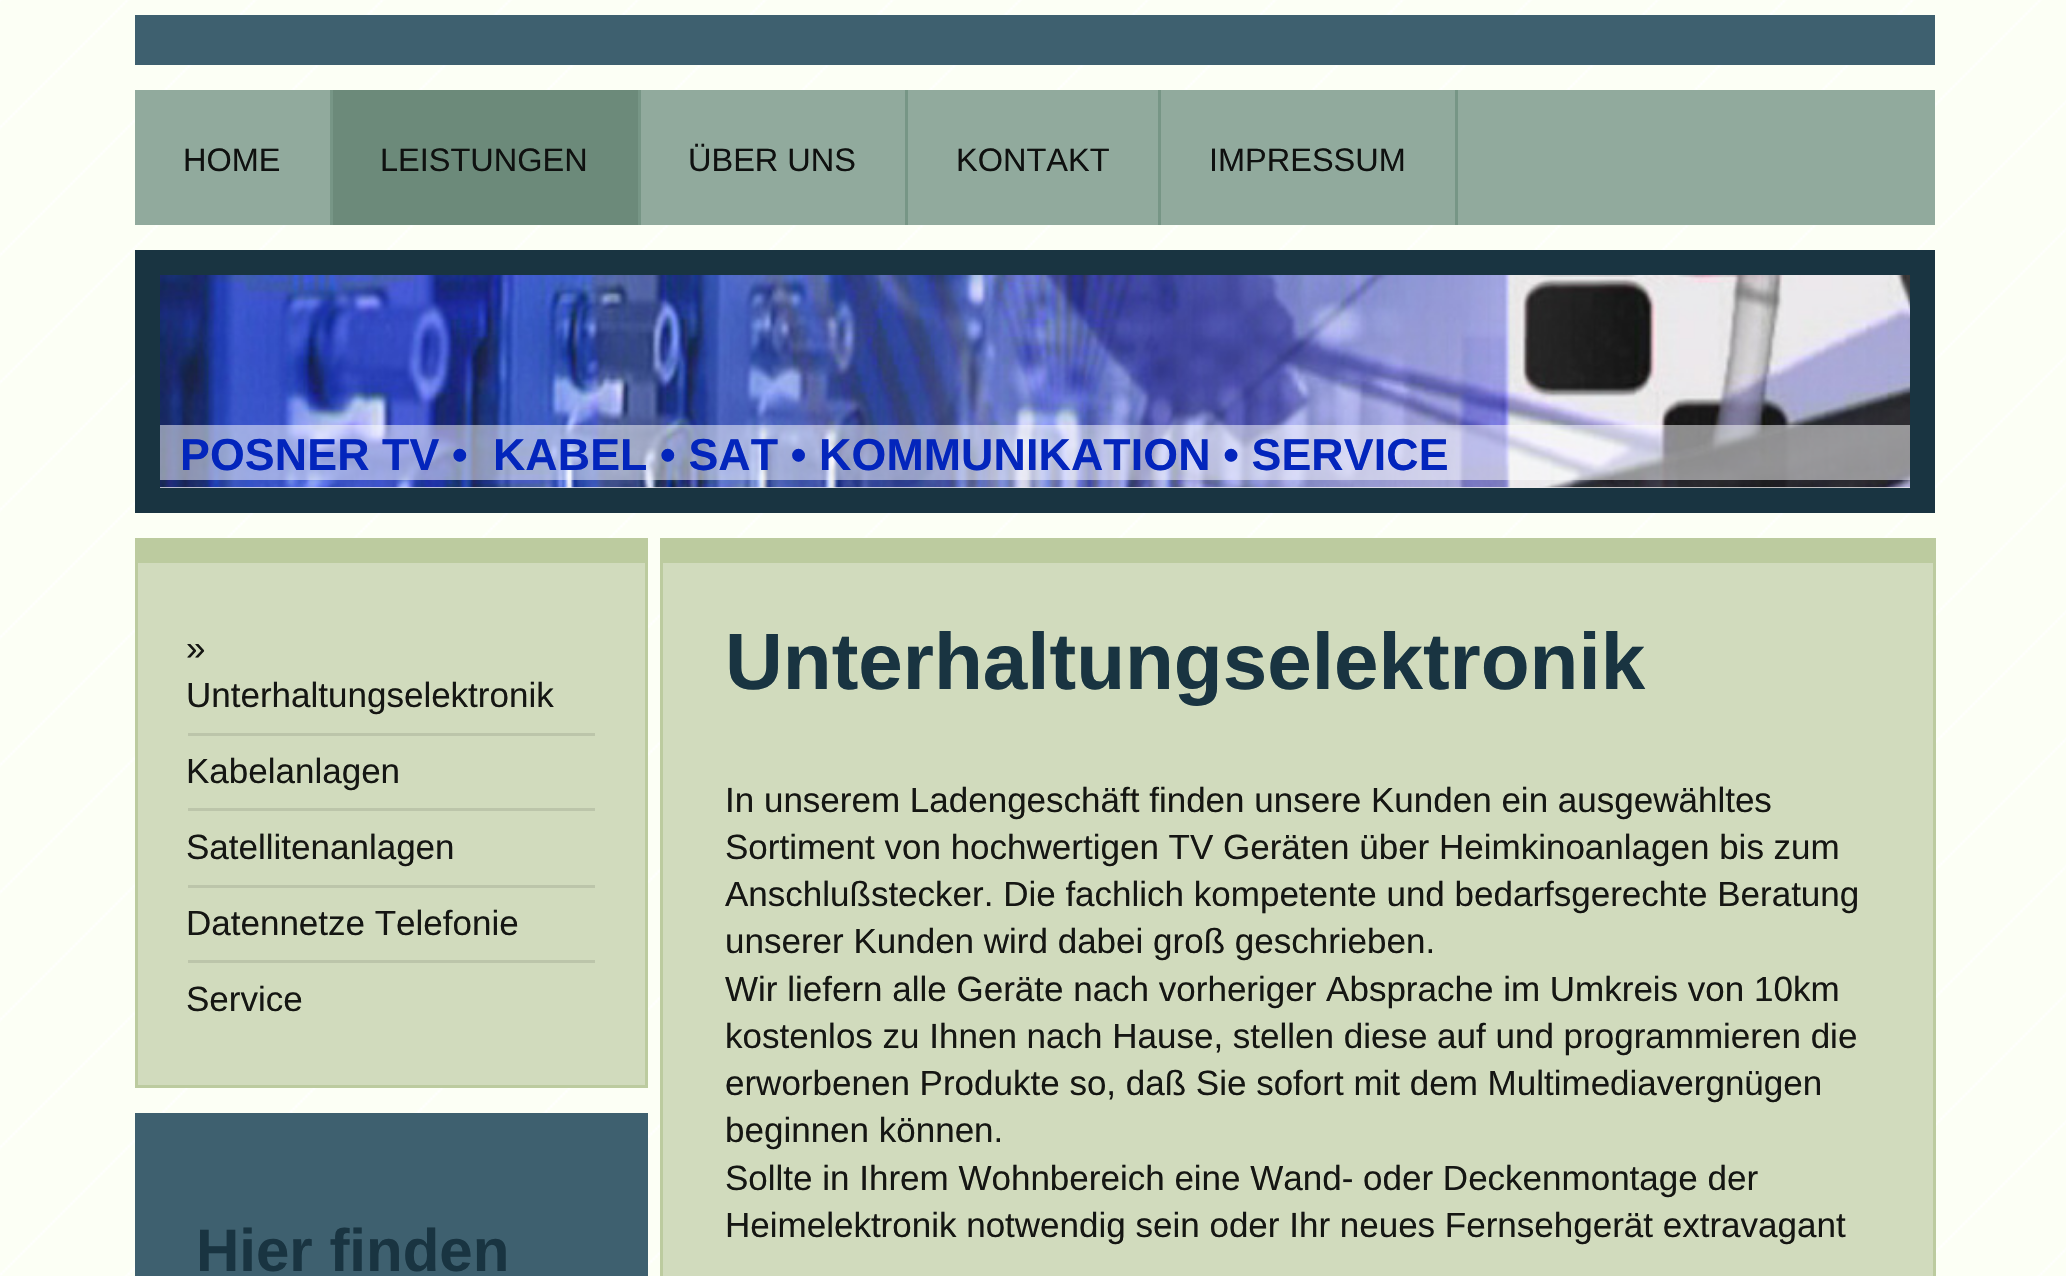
void draw(SkCanvas* canvas) {
  SkPaint paint;
  paint.setAntiAlias(true);
  auto face = [&](const char* family, int weight, float size, bool italic = false) {
    SkFontStyle style(weight, SkFontStyle::kNormal_Width,
      italic ? SkFontStyle::kItalic_Slant : SkFontStyle::kUpright_Slant);
    SkFont result(fontMgr->matchFamilyStyle(family, style), size);
    result.setSubpixel(true);
    return result;
  };
  auto writeSpaced = [&](const char* s, float x, float y, const SkFont& font, const SkPaint& ink, float letter, float word) {
    std::vector<SkGlyphID> glyphs(font.countText(s, strlen(s), SkTextEncoding::kUTF8));
    std::vector<float> xs(glyphs.size());
    font.textToGlyphs(s, strlen(s), SkTextEncoding::kUTF8, glyphs);
    font.getXPos(glyphs, xs, x);
    float extra = 0;
    for (size_t i = 0; i < glyphs.size(); i++) {
      xs[i] += extra;
      extra += letter + word * (glyphs[i] == font.unicharToGlyph(' '));
    }
    canvas->drawTextBlob(SkTextBlob::MakeFromPosHGlyphs(glyphs, xs, y, font), 0, 0, ink);
  };
  auto paste = [&](const char* path, float x, float y, float w, float h) {
    auto image = SkImages::DeferredFromEncodedData(SkData::MakeFromFileName(path));
    canvas->drawImageRect(image, SkRect::MakeXYWH(x, y, w, h), SkSamplingOptions());
  };
  canvas->clear(0xfffcfff5);
  paste("img/1.png", 0, 0, 2066, 1276);
  {
    const struct { float x, y, w, h; SkColor color; } items[] = {
      {135, 90, 1800, 135, 0xff91aa9d},
      {135, 15, 1800, 50, 0xff3e606f},
      {330, 90, 3, 135, 0xff779686},
      {333, 90, 305, 135, 0xff6c8a7a},
      {638, 90, 3, 135, 0xff779686},
      {905, 90, 3, 135, 0xff779686},
      {1158, 90, 3, 135, 0xff779686},
      {1455, 90, 3, 135, 0xff779686},
      {135, 250, 1800, 263, 0xff193441},
      {160, 487, 1750, 1, 0xffeeeeee},
    };
    for (auto [x, y, w, h, color] : items) {
      paint.setColor(color);
      canvas->drawRect(SkRect::MakeXYWH(x, y, w, h), paint);
    }
  }
  paste("img/2.png", 160, 275, 1750, 213);
  {
    const struct { float x, y, w, h; SkColor color; } items[] = {
      {160, 425, 1750, 55, 0x80ffffff},
      {138, 563, 507, 522, 0xffd1dbbd},
      {138, 538, 507, 25, 0xffbccb9f},
      {645, 538, 3, 550, 0xffbccb9f},
      {135, 1085, 513, 3, 0xffbccb9f},
      {135, 538, 3, 550, 0xffbccb9f},
      {188, 733, 407, 3, 0xffbcc5aa},
      {188, 808, 407, 3, 0xffbcc5aa},
      {188, 885, 407, 3, 0xffbcc5aa},
      {188, 960, 407, 3, 0xffbcc5aa},
      {135, 1113, 513, 163, 0xff3e606f},
      {663, 563, 1270, 713, 0xffd1dbbd},
      {663, 538, 1270, 25, 0xffbccb9f},
      {1933, 538, 3, 738, 0xffbccb9f},
      {660, 538, 3, 738, 0xffbccb9f},
    };
    for (auto [x, y, w, h, color] : items) {
      paint.setColor(color);
      canvas->drawRect(SkRect::MakeXYWH(x, y, w, h), paint);
    }
  }
  auto f0 = face("Liberation Sans", 400, 32.5f);
  paint.setColor(0xff0f1110);
  {
    const struct { const char* s; float x, y; } items[] = {
      {"HOME", 183, 171},
      {"LEISTUNGEN", 380, 171},
      {"ÜBER UNS", 688, 171},
      {"KONTAKT", 956, 171},
      {"IMPRESSUM", 1209, 171},
    };
    for (auto [s, x, y] : items) {
      canvas->drawString(s, x, y, f0, paint);
    }
  }
  auto f1 = face("Liberation Sans", 700, 44.7f);
  paint.setColor(0xff0325bc);
  writeSpaced("POSNER TV •  KABEL • SAT • KOMMUNIKATION • SERVICE", 180, 470, f1, paint, 0.13f, 0);
  auto f2 = face("Liberation Sans", 400, 35);
  paint.setColor(0xff151613);
  {
    const struct { const char* s; float x, y; } items[] = {
      {"»", 186, 660},
      {"Unterhaltungselektronik", 186, 707},
      {"Kabelanlagen", 186, 783},
      {"Satellitenanlagen", 186, 859},
      {"Datennetze Telefonie", 186, 935},
      {"Service", 186, 1011},
    };
    for (auto [s, x, y] : items) {
      canvas->drawString(s, x, y, f2, paint);
    }
  }
  auto f3 = face("Liberation Sans", 700, 60);
  paint.setColor(0xff193441);
  canvas->drawString("Hier finden", 196, 1271, f3, paint);
  auto f4 = face("Liberation Sans", 700, 80);
  canvas->drawString("Unterhaltungselektronik", 725, 689, f4, paint);
  paint.setColor(0xff151613);
  {
    const struct { const char* s; float x, y; } items[] = {
      {"In unserem Ladengeschäft finden unsere Kunden ein ausgewähltes", 725, 812},
      {"Sortiment von hochwertigen TV Geräten über Heimkinoanlagen bis zum", 725, 859},
      {"Anschlußstecker. Die fachlich kompetente und bedarfsgerechte Beratung", 725, 906},
      {"unserer Kunden wird dabei groß geschrieben.", 725, 953},
      {"Wir liefern alle Geräte nach vorheriger Absprache im Umkreis von 10km", 725, 1001},
      {"kostenlos zu Ihnen nach Hause, stellen diese auf und programmieren die", 725, 1048},
      {"erworbenen Produkte so, daß Sie sofort mit dem Multimediavergnügen", 725, 1095},
      {"beginnen können.", 725, 1142},
      {"Sollte in Ihrem Wohnbereich eine Wand- oder Deckenmontage der", 725, 1190},
      {"Heimelektronik notwendig sein oder Ihr neues Fernsehgerät extravagant", 725, 1237},
    };
    for (auto [s, x, y] : items) {
      canvas->drawString(s, x, y, f2, paint);
    }
  }
}
